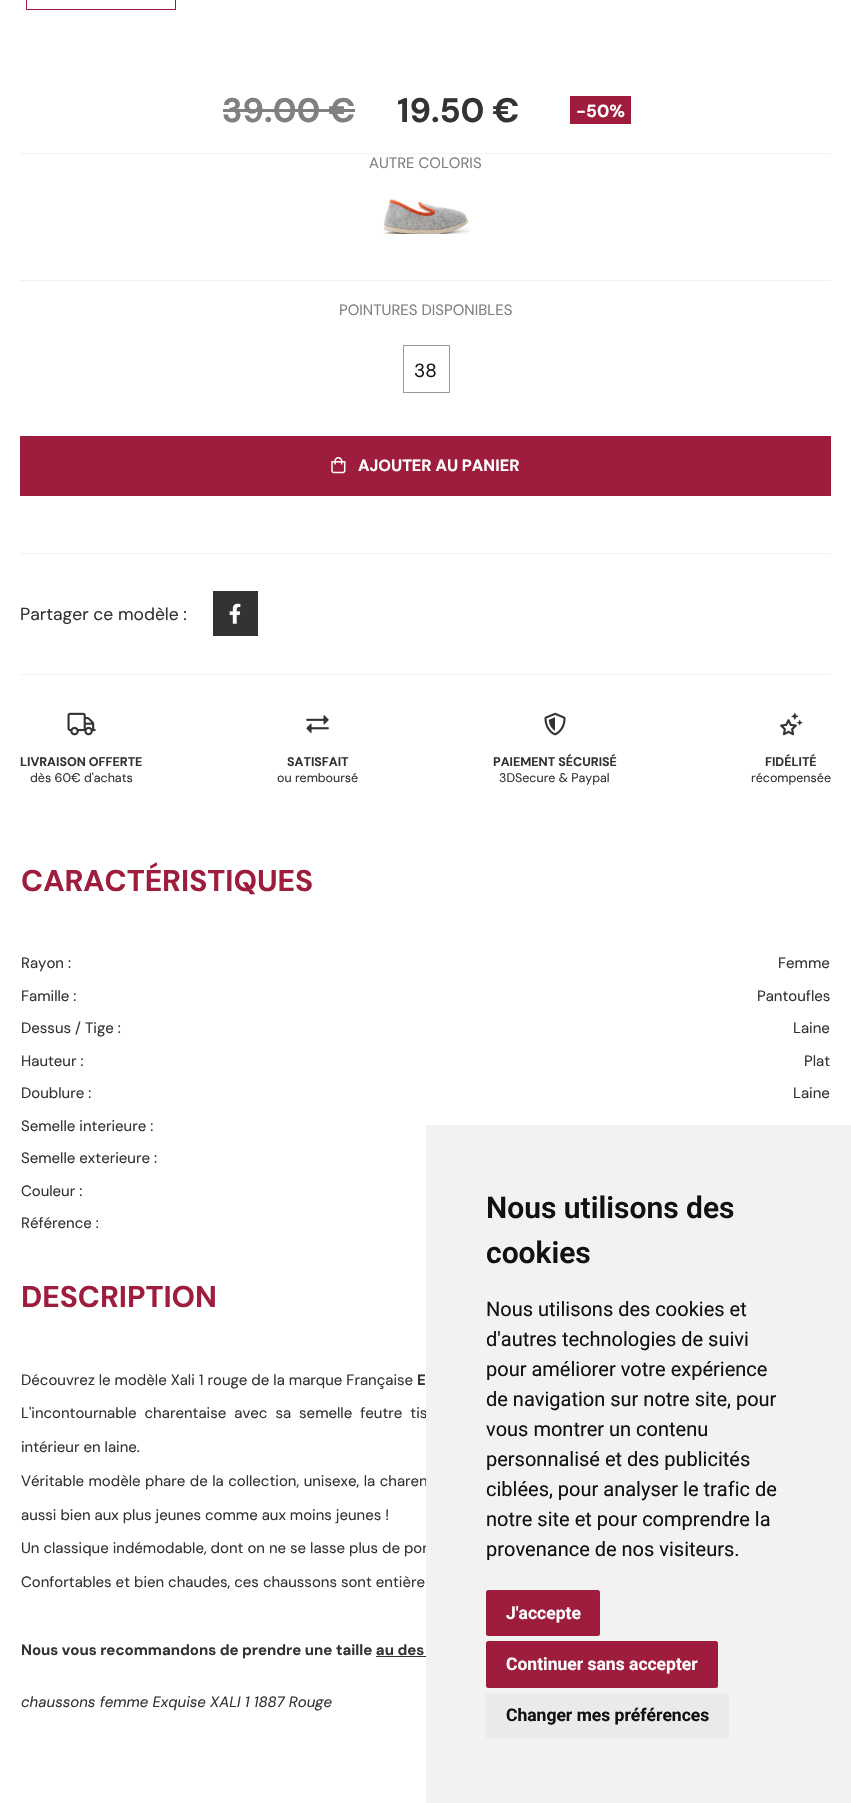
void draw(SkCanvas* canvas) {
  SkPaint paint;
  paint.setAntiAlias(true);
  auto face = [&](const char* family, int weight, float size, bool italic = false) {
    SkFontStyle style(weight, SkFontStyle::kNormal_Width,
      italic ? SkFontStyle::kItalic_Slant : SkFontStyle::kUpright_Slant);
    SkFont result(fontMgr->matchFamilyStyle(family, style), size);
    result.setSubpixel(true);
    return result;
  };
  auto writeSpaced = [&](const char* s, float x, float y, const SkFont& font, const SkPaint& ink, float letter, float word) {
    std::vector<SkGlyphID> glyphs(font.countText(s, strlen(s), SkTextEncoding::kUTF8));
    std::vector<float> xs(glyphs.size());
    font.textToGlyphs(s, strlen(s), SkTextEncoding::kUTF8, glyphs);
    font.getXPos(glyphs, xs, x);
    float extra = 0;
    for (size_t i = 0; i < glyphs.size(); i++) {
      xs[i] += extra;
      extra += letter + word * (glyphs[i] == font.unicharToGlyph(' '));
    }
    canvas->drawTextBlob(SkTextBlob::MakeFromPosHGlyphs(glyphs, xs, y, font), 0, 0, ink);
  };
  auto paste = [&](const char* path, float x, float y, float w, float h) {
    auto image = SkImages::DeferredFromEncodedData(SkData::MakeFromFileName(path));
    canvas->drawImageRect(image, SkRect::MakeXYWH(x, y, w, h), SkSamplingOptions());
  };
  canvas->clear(0xffffffff);
  paint.setStroke(true);
  paint.setStrokeWidth(1);
  paint.setColor(0xff9e1c3c);
  canvas->drawRect(SkRect::MakeXYWH(26.5f, -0.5f, 149, 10), paint);
  paint.setStroke(false);
  {
    const struct { float x, y, w, h; SkColor color; } items[] = {
      {223, 109, 132, 3, 0xff808080},
      {570, 96, 61, 28, 0xff9e1c3c},
      {20, 153, 811, 1, 0xfff2f2f2},
    };
    for (auto [x, y, w, h, color] : items) {
      paint.setColor(color);
      canvas->drawRect(SkRect::MakeXYWH(x, y, w, h), paint);
    }
  }
  paste("img/1.png", 383, 199, 87, 35);
  canvas->drawRect(SkRect::MakeXYWH(20, 280, 811, 1), paint);
  paint.setStroke(true);
  paint.setColor(0xff999999);
  canvas->drawRect(SkRect::MakeXYWH(403.5f, 345.5f, 46, 47), paint);
  paint.setStroke(false);
  paint.setColor(0xfff2f2f2);
  canvas->drawRect(SkRect::MakeXYWH(20, 553, 811, 1), paint);
  paint.setColor(0xff9e1c3c);
  canvas->drawRect(SkRect::MakeXYWH(20, 436, 811, 60), paint);
  paste("img/2.png", 331, 457, 15, 17);
  paint.setColor(0xfff2f2f2);
  canvas->drawRect(SkRect::MakeXYWH(20, 674, 811, 1), paint);
  paint.setColor(0xff333333);
  canvas->drawRect(SkRect::MakeXYWH(213, 591, 45, 45), paint);
  paste("img/3.png", 229, 603, 12, 21);
  paste("img/4.png", 67, 712, 29, 24);
  paste("img/5.png", 306, 715, 23, 18);
  paste("img/6.png", 544, 712, 22, 24);
  paste("img/7.png", 780, 712, 23, 24);
  canvas->drawRect(SkRect::MakeXYWH(376, 1656, 50, 1), paint);
  auto f0 = face("DM Sans", 700, 34);
  paint.setColor(0xff808080);
  canvas->drawString("39.00 €", 222, 122, f0, paint);
  paint.setColor(0xff333333);
  canvas->drawString("19.50 €", 397, 122, f0, paint);
  auto f1 = face("DM Sans", 700, 17.5f);
  paint.setColor(0xfffefefe);
  canvas->drawString("-50%", 576, 117, f1, paint);
  auto f2 = face("DM Sans", 400, 15);
  paint.setColor(0xff808080);
  canvas->drawString("AUTRE COLORIS", 369, 168, f2, paint);
  canvas->drawString("POINTURES DISPONIBLES", 339, 315, f2, paint);
  auto f3 = face("DM Sans", 400, 19);
  paint.setColor(0xff1a1a1a);
  canvas->drawString("38", 414, 377, f3, paint);
  auto f4 = face("DM Sans", 700, 16.25f);
  paint.setColor(0xfffefefe);
  canvas->drawString("AJOUTER AU PANIER", 358, 471, f4, paint);
  auto f5 = face("DM Sans", 400, 17.5f);
  paint.setColor(0xff333333);
  canvas->drawString("Partager ce modèle :", 20, 620, f5, paint);
  auto f6 = face("DM Sans", 700, 12.5f);
  canvas->drawString("LIVRAISON OFFERTE", 20, 766, f6, paint);
  auto f7 = face("DM Sans", 400, 12.5f);
  canvas->drawString("dès 60€ d'achats", 30, 782, f7, paint);
  canvas->drawString("SATISFAIT", 287, 766, f6, paint);
  canvas->drawString("ou remboursé", 277, 782, f7, paint);
  canvas->drawString("PAIEMENT SÉCURISÉ", 493, 766, f6, paint);
  canvas->drawString("3DSecure & Paypal", 499, 782, f7, paint);
  canvas->drawString("FIDÉLITÉ", 765, 766, f6, paint);
  canvas->drawString("récompensée", 751, 782, f7, paint);
  auto f8 = face("DM Sans", 700, 30);
  paint.setColor(0xff9e1c3c);
  canvas->drawString("CARACTÉRISTIQUES", 21, 891, f8, paint);
  paint.setColor(0xff333333);
  {
    const struct { const char* s; float x, y; } items[] = {
      {"Rayon :", 21, 968},
      {"Femme", 778, 968},
      {"Famille :", 21, 1001},
      {"Pantoufles", 757, 1001},
      {"Dessus / Tige :", 21, 1033},
      {"Laine", 793, 1033},
      {"Hauteur :", 21, 1066},
      {"Plat", 804, 1066},
      {"Doublure :", 21, 1098},
      {"Laine", 793, 1098},
      {"Semelle interieure :", 21, 1131},
      {"Semelle exterieure :", 21, 1163},
      {"Couleur :", 21, 1196},
      {"Référence :", 21, 1228},
    };
    for (auto [s, x, y] : items) {
      canvas->drawString(s, x, y, f2, paint);
    }
  }
  paint.setColor(0xff9e1c3c);
  canvas->drawString("DESCRIPTION", 21, 1307, f8, paint);
  paint.setColor(0xff333333);
  canvas->drawString("Découvrez le modèle Xali 1 rouge de la marque Française", 21, 1385, f2, paint);
  auto f9 = face("DM Sans", 700, 15);
  canvas->drawString("E", 417, 1385, f9, paint);
  writeSpaced("L'incontournable charentaise avec sa semelle feutre tis", 21, 1418, f2, paint, 0, 4);
  canvas->drawString("intérieur en laine.", 21, 1452, f2, paint);
  writeSpaced("Véritable modèle phare de la collection, unisexe, la charen", 21, 1486, f2, paint, 0, 0.5f);
  {
    const struct { const char* s; float x, y; } items[] = {
      {"aussi bien aux plus jeunes comme aux moins jeunes !", 21, 1520},
      {"Un classique indémodable, dont on ne se lasse plus de por", 21, 1553},
      {"Confortables et bien chaudes, ces chaussons sont entière", 21, 1587},
    };
    for (auto [s, x, y] : items) {
      canvas->drawString(s, x, y, f2, paint);
    }
  }
  canvas->drawString("Nous vous recommandons de prendre une taille au des", 21, 1655, f9, paint);
  auto f10 = face("DM Sans", 400, 15, true);
  canvas->drawString("chaussons femme Exquise XALI 1 1887 Rouge", 21, 1707, f10, paint);
  paint.setColor(0xfff2f2f2);
  canvas->drawRect(SkRect::MakeXYWH(426, 1125, 425, 678), paint);
  auto f11 = face("Roboto", 600, 30);
  paint.setColor(0xff111111);
  canvas->drawString("Nous utilisons des", 486, 1218, f11, paint);
  canvas->drawString("cookies", 486, 1263, f11, paint);
  auto f12 = face("Roboto", 400, 20);
  {
    const struct { const char* s; float x, y; } items[] = {
      {"Nous utilisons des cookies et", 486, 1316},
      {"d'autres technologies de suivi", 486, 1346},
      {"pour améliorer votre expérience", 486, 1376},
      {"de navigation sur notre site, pour", 486, 1406},
      {"vous montrer un contenu", 486, 1436},
      {"personnalisé et des publicités", 486, 1466},
      {"ciblées, pour analyser le trafic de", 486, 1496},
      {"notre site et pour comprendre la", 486, 1526},
      {"provenance de nos visiteurs.", 486, 1556},
    };
    for (auto [s, x, y] : items) {
      canvas->drawString(s, x, y, f12, paint);
    }
  }
  paint.setColor(0xff9e1d3c);
  canvas->drawRoundRect(SkRect::MakeXYWH(486, 1590, 114, 46), 2.5f, 2.5f, paint);
  auto f13 = face("Roboto", 700, 17.5f);
  paint.setColor(0xfffefefe);
  canvas->drawString("J'accepte", 506, 1619, f13, paint);
  paint.setColor(0xff9e1d3c);
  canvas->drawRoundRect(SkRect::MakeXYWH(486, 1641, 232, 47), 2.5f, 2.5f, paint);
  paint.setColor(0xfffefefe);
  canvas->drawString("Continuer sans accepter", 506, 1670, f13, paint);
  paint.setColor(0xffeaeaea);
  canvas->drawRoundRect(SkRect::MakeXYWH(486, 1693, 243, 46), 2.5f, 2.5f, paint);
  paint.setColor(0xff111111);
  canvas->drawString("Changer mes préférences", 506, 1721, f13, paint);
}
